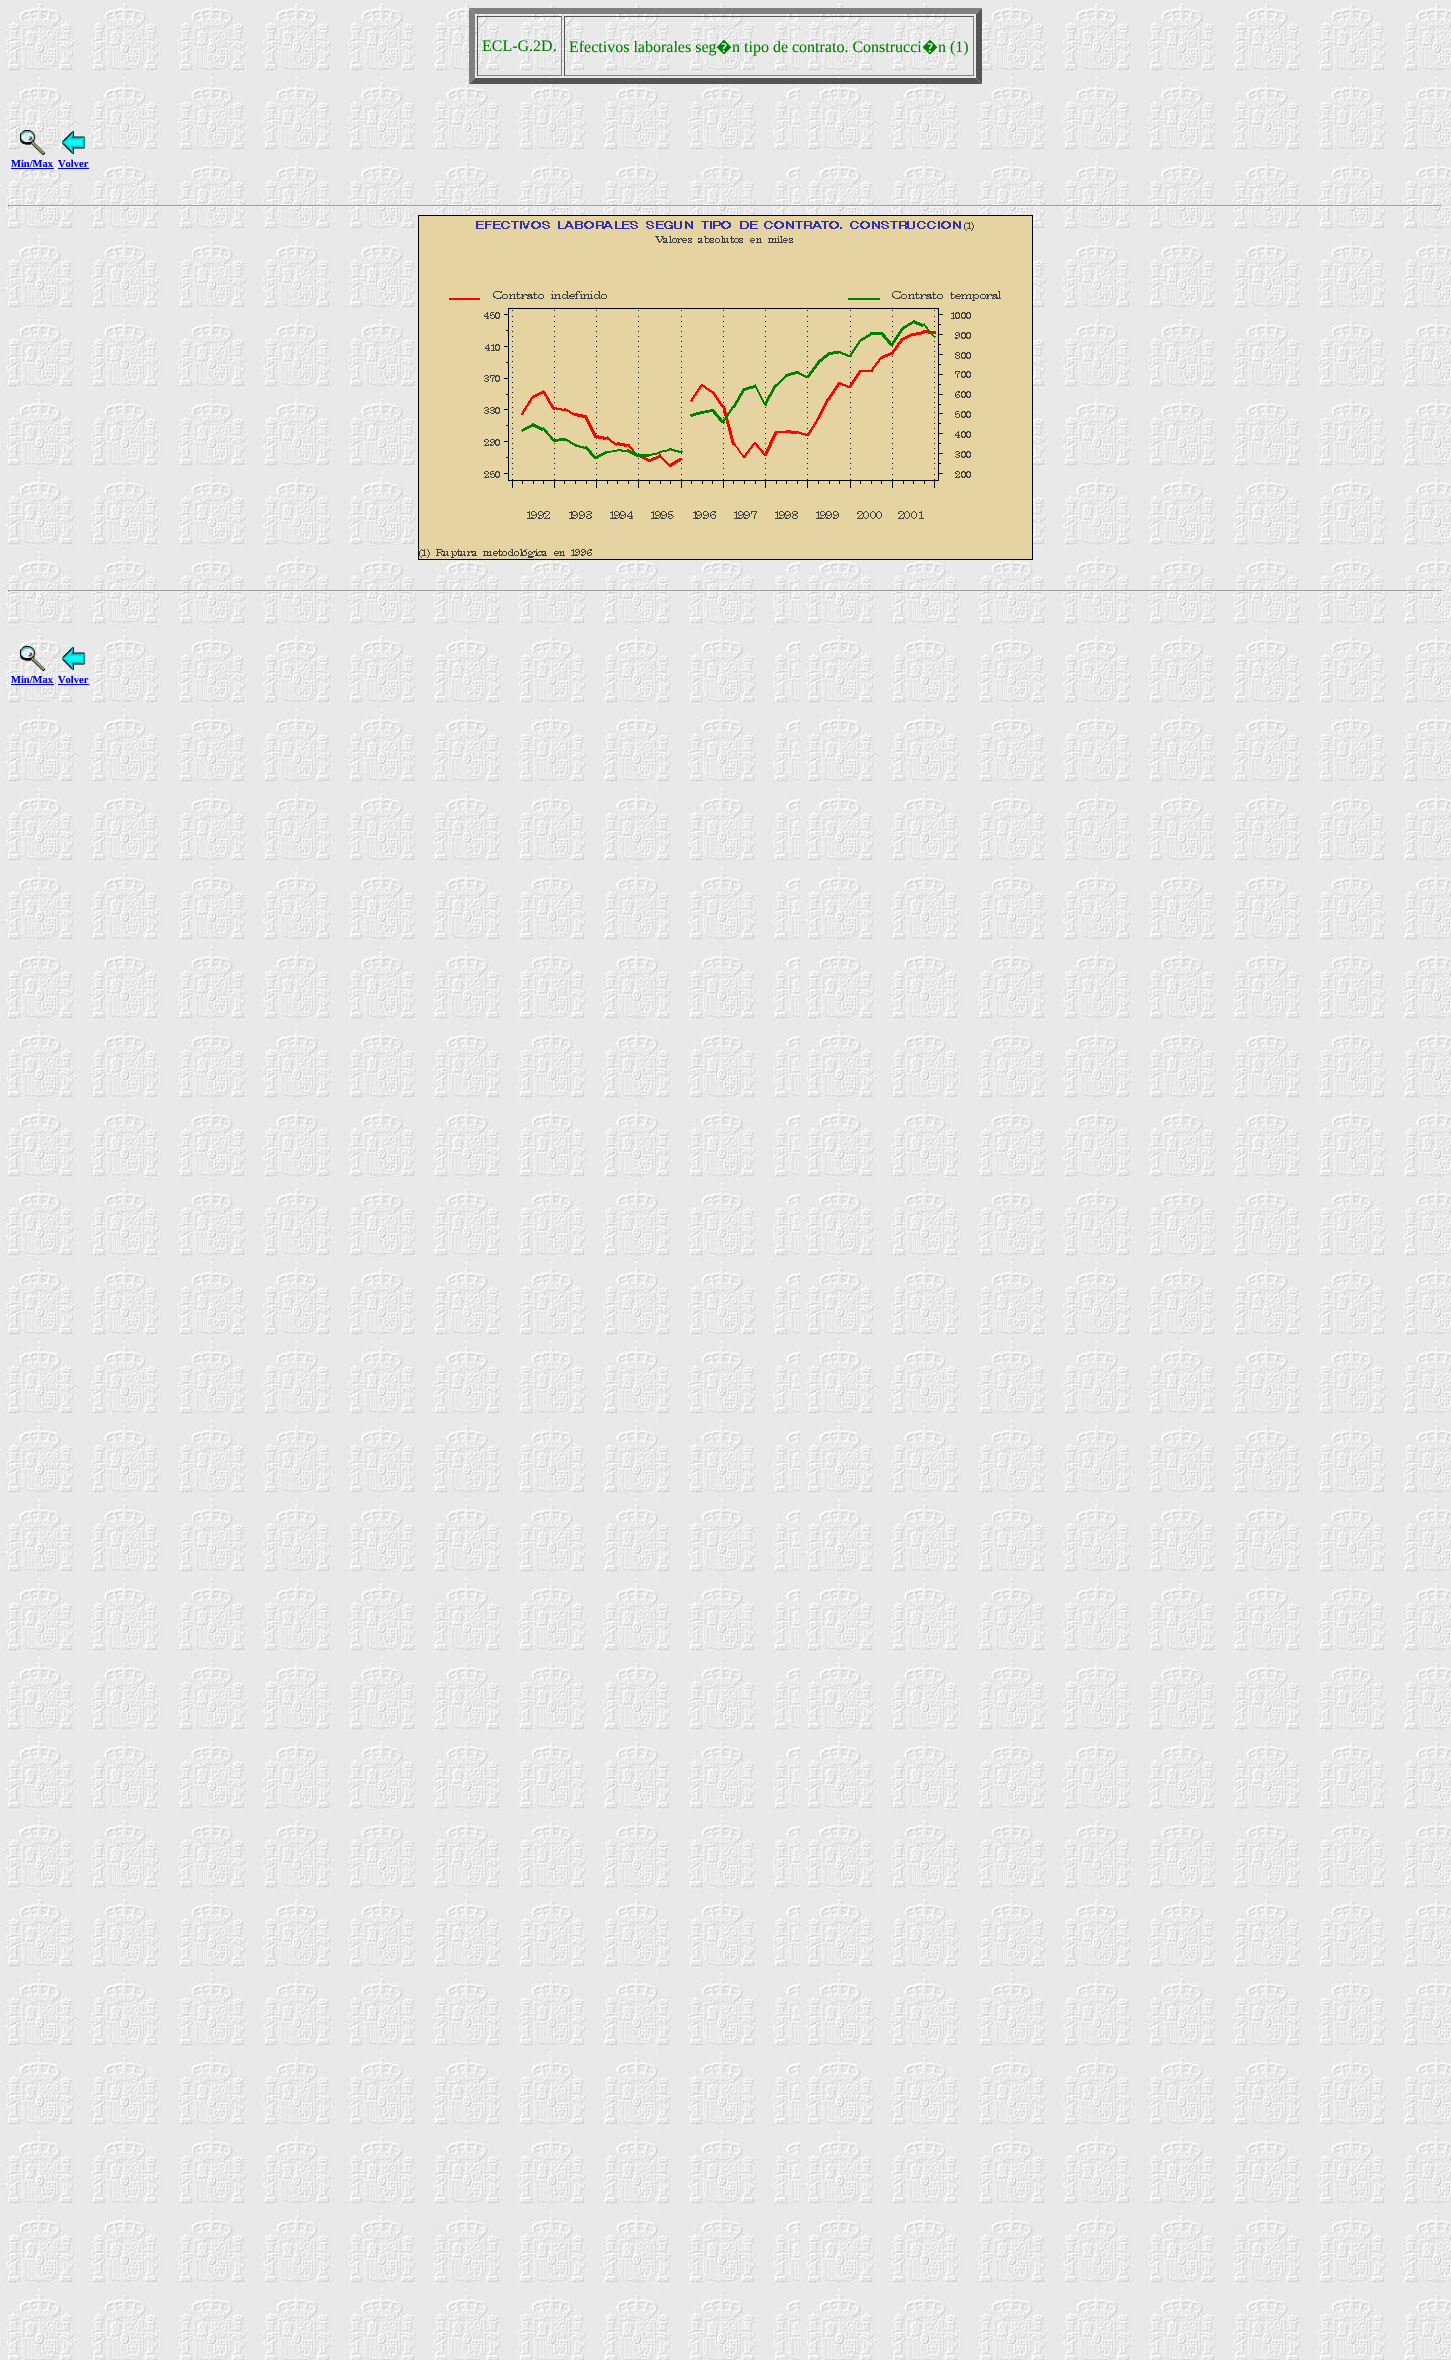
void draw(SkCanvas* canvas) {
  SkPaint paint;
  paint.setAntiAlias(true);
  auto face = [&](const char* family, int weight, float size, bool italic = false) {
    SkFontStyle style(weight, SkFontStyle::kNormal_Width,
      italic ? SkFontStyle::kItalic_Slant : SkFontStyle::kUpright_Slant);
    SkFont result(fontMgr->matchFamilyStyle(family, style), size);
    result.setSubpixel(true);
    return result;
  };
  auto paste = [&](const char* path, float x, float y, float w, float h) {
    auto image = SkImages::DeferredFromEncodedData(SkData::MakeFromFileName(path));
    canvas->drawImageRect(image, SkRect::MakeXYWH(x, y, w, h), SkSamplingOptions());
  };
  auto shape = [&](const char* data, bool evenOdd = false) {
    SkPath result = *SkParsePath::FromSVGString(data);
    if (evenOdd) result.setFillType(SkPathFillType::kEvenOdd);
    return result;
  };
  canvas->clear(0xffffffff);
  paste("img/1.png", 0, 0, 1451, 2360);
  paint.setColor(0xff808080);
  canvas->drawPath(shape("M469 8H982L976 14H475Z"), paint);
  paint.setColor(0xff555555);
  canvas->drawPath(shape("M982 8V84L976 78V14Z"), paint);
  canvas->drawPath(shape("M982 84H469L475 78H976Z"), paint);
  paint.setColor(0xff808080);
  canvas->drawPath(shape("M469 84V8L475 14V78Z"), paint);
  {
    const struct { float x, y, w, h; SkColor color; } items[] = {
      {477, 16, 85, 1, 0xff555555},
      {561, 16, 1, 60, 0xff808080},
      {477, 75, 85, 1, 0xff808080},
      {477, 16, 1, 60, 0xff555555},
      {564, 16, 410, 1, 0xff555555},
      {973, 16, 1, 60, 0xff808080},
      {564, 75, 410, 1, 0xff808080},
      {564, 16, 1, 60, 0xff555555},
    };
    for (auto [x, y, w, h, color] : items) {
      paint.setColor(color);
      canvas->drawRect(SkRect::MakeXYWH(x, y, w, h), paint);
    }
  }
  paste("img/2.png", 20, 130, 25, 25);
  paint.setColor(0xff0000ee);
  canvas->drawRect(SkRect::MakeXYWH(11, 168, 43, 1), paint);
  paste("img/3.png", 61, 130, 25, 25);
  {
    const struct { float x, y, w, h; SkColor color; } items[] = {
      {58, 168, 31, 1, 0xff0000ee},
      {8, 205, 1435, 1, 0xff9f9f9f},
      {1442, 205, 1, 2, 0xffeeeeee},
      {8, 206, 1435, 1, 0xffeeeeee},
      {8, 205, 1, 2, 0xff9f9f9f},
    };
    for (auto [x, y, w, h, color] : items) {
      paint.setColor(color);
      canvas->drawRect(SkRect::MakeXYWH(x, y, w, h), paint);
    }
  }
  paste("img/4.png", 418, 215, 615, 345);
  {
    const struct { float x, y, w, h; SkColor color; } items[] = {
      {8, 590, 1435, 1, 0xff9f9f9f},
      {1442, 590, 1, 2, 0xffeeeeee},
      {8, 591, 1435, 1, 0xffeeeeee},
      {8, 590, 1, 2, 0xff9f9f9f},
    };
    for (auto [x, y, w, h, color] : items) {
      paint.setColor(color);
      canvas->drawRect(SkRect::MakeXYWH(x, y, w, h), paint);
    }
  }
  paste("img/5.png", 20, 646, 25, 25);
  paint.setColor(0xff0000ee);
  canvas->drawRect(SkRect::MakeXYWH(11, 684, 43, 1), paint);
  paste("img/6.png", 61, 646, 25, 25);
  canvas->drawRect(SkRect::MakeXYWH(58, 684, 31, 1), paint);
  auto f0 = face("Liberation Serif", 400, 16);
  paint.setColor(0xff008000);
  canvas->drawString("ECL-G.2D.", 482, 51, f0, paint);
  canvas->drawString("Efectivos laborales seg", 569, 52, f0, paint);
  auto f1 = face("Noto Sans", 400, 16);
  canvas->drawString("�", 716, 52, f1, paint);
  canvas->drawString("n tipo de contrato. Construcci", 732, 52, f0, paint);
  canvas->drawString("�", 922, 52, f1, paint);
  canvas->drawString("n (1)", 938, 52, f0, paint);
  auto f2 = face("Liberation Serif", 700, 10.5f);
  paint.setColor(0xff0000ee);
  {
    const struct { const char* s; float x, y; } items[] = {
      {"Min/Max", 11, 167},
      {"Volver", 58, 167},
      {"Min/Max", 11, 683},
      {"Volver", 58, 683},
    };
    for (auto [s, x, y] : items) {
      canvas->drawString(s, x, y, f2, paint);
    }
  }
}
